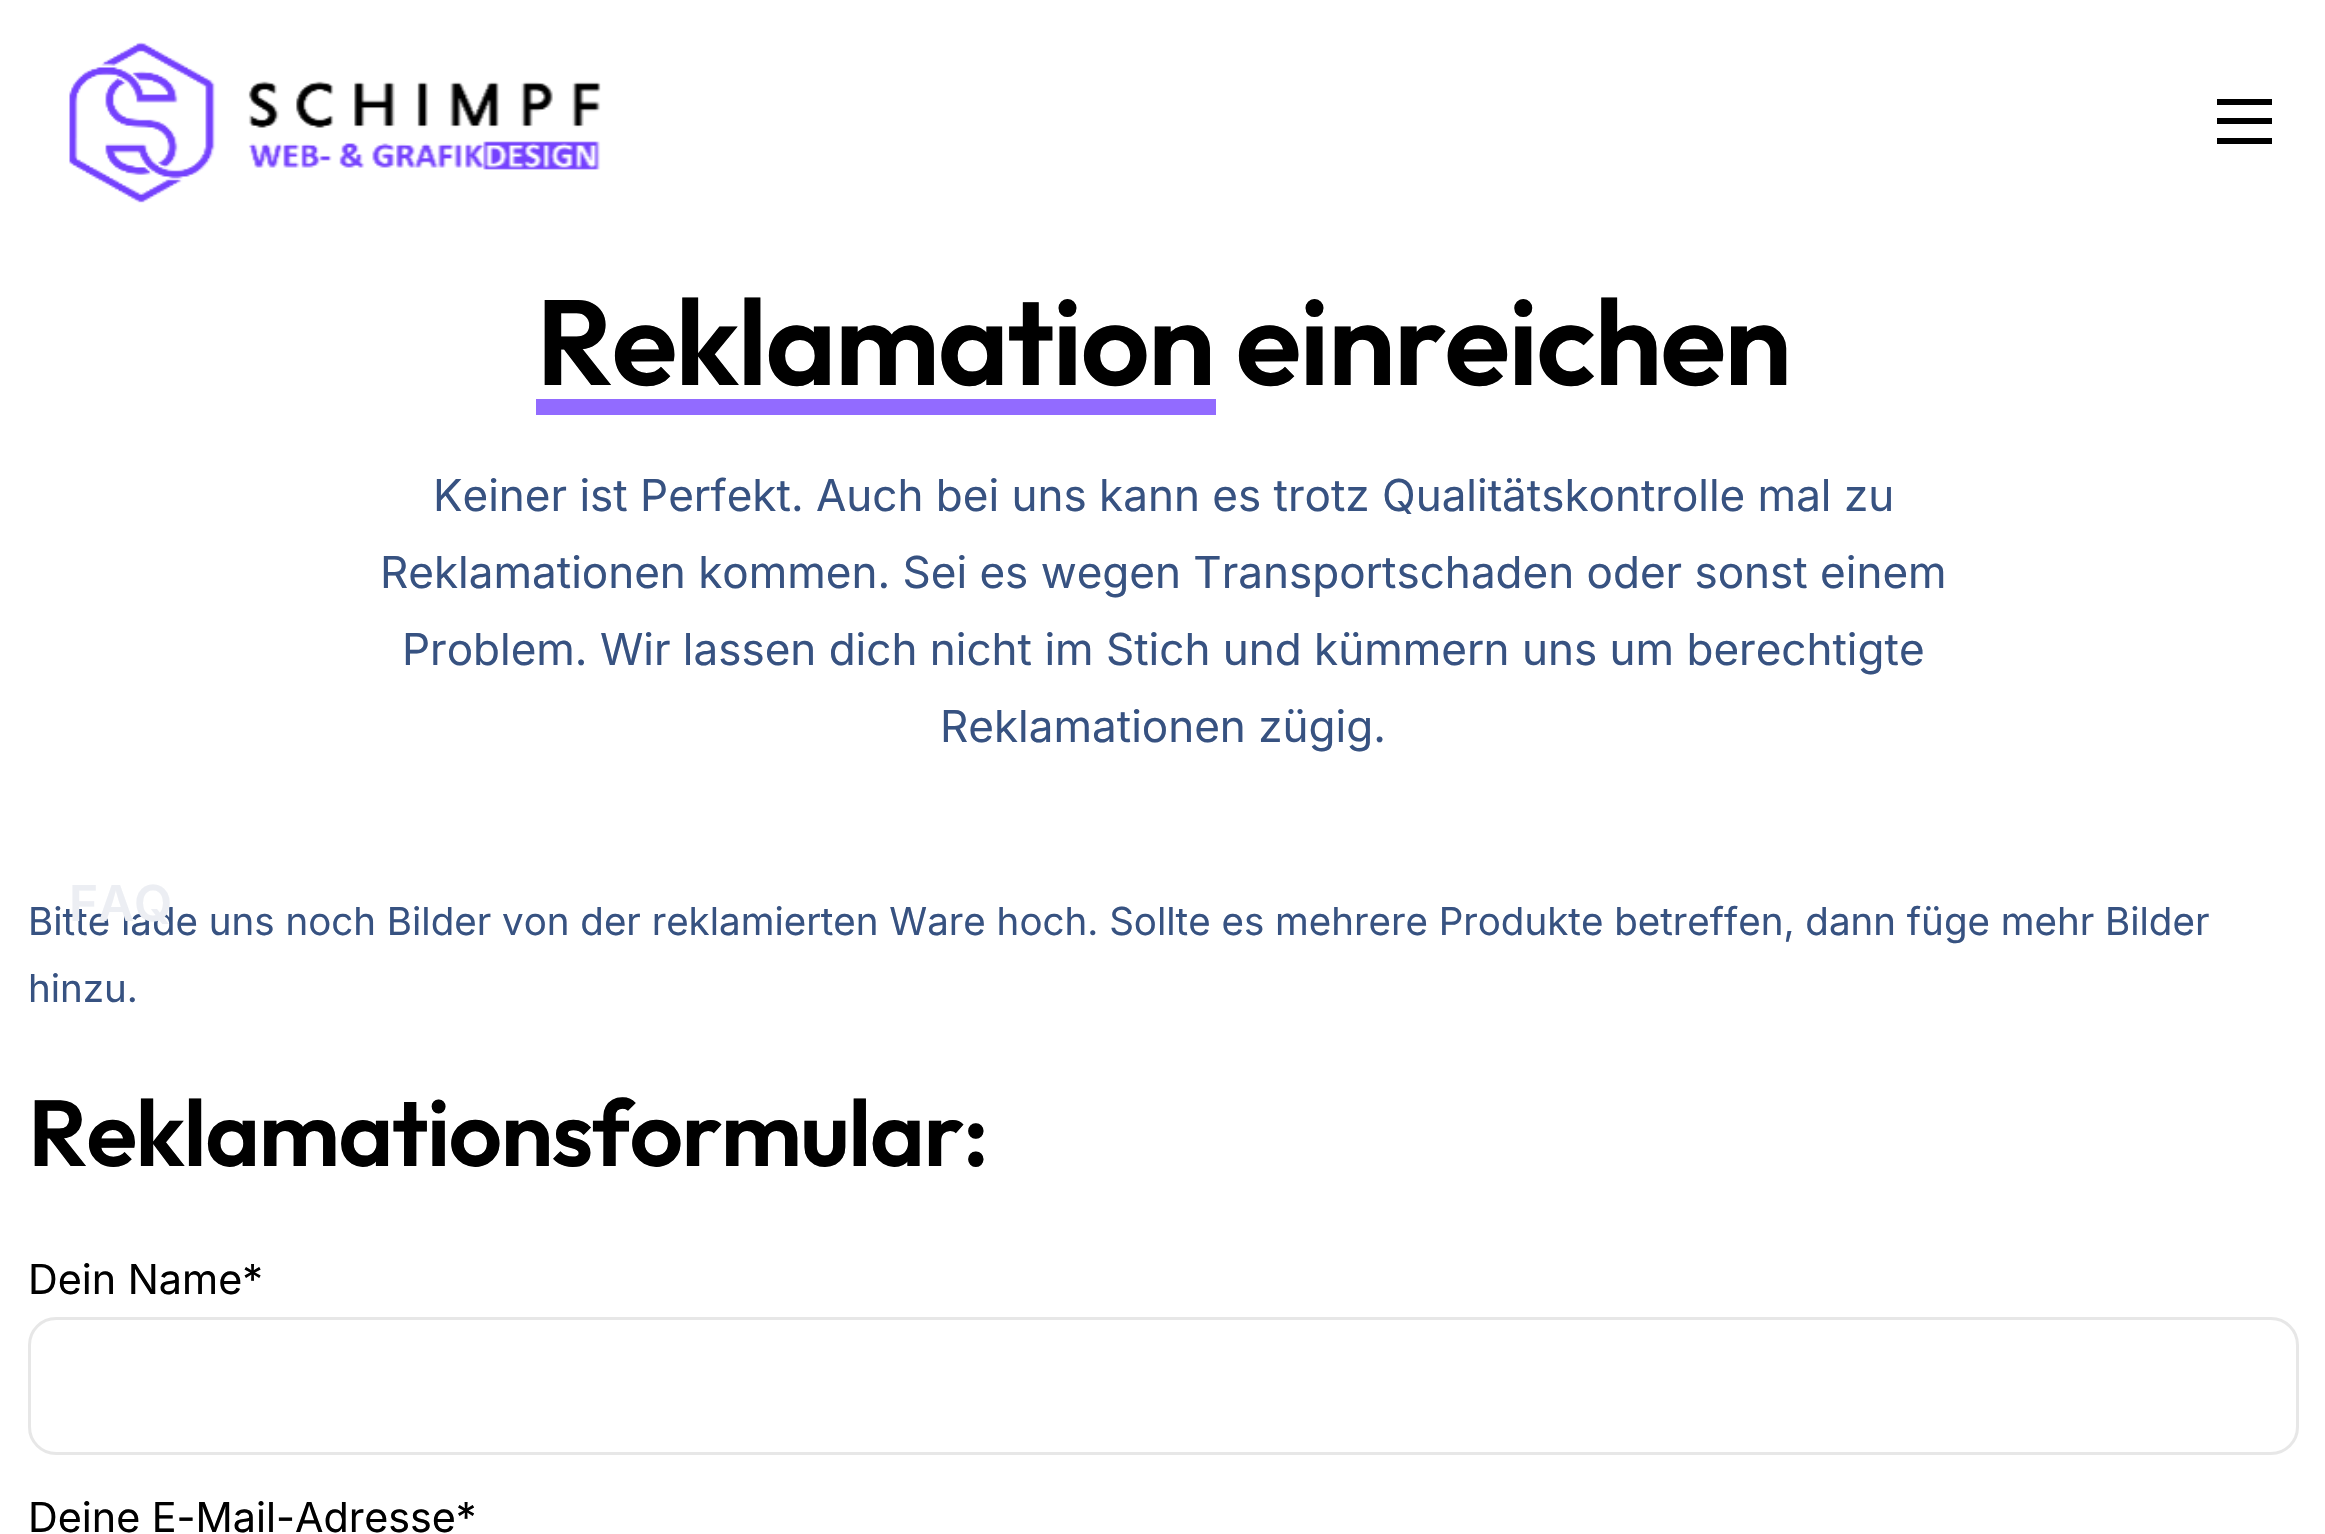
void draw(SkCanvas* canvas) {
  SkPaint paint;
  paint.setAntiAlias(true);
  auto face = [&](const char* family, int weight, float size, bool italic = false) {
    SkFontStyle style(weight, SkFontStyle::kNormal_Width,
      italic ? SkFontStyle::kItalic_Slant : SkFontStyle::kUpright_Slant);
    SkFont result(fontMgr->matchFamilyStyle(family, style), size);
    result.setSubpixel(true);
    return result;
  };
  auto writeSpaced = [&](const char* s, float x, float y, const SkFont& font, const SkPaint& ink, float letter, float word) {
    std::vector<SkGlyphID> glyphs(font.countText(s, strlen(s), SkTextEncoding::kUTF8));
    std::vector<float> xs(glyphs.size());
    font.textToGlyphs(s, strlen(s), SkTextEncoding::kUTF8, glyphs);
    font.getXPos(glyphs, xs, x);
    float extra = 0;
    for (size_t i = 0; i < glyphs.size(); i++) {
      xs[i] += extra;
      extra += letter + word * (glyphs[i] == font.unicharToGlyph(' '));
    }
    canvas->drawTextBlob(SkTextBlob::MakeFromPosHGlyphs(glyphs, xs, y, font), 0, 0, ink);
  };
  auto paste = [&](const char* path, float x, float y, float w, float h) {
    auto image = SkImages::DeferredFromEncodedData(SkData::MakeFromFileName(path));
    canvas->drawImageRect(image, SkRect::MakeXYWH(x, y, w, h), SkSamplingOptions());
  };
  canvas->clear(0xffffffff);
  paint.setColor(0xff926bff);
  canvas->drawRect(SkRect::MakeXYWH(536, 399, 680, 16), paint);
  paint.setStroke(true);
  paint.setStrokeWidth(3);
  paint.setColor(0xffe7e7e7);
  canvas->drawRoundRect(SkRect::MakeXYWH(29.5f, 1318.5f, 2268, 135), 26.5f, 26.5f, paint);
  paste("img/1.png", 69, 42, 532, 161);
  paint.setStroke(false);
  {
    const struct { float x, y, w, h; SkColor color; } items[] = {
      {2217, 99, 55, 6, 0xff000000},
      {2217, 118, 55, 6, 0xff000000},
      {2217, 138, 55, 6, 0xff000000},
    };
    for (auto [x, y, w, h, color] : items) {
      paint.setColor(color);
      canvas->drawRect(SkRect::MakeXYWH(x, y, w, h), paint);
    }
  }
  auto f0 = face("Outfit", 600, 121);
  writeSpaced("Reklamation einreichen", 536, 385, f0, paint, -1.8f, 0);
  auto f1 = face("Inter", 400, 44);
  paint.setColor(0xff375281);
  {
    const struct { const char* s; float x, y; } items[] = {
      {"Keiner ist Perfekt. Auch bei uns kann es trotz Qualitätskontrolle mal zu", 433, 511},
      {"Reklamationen kommen. Sei es wegen Transportschaden oder sonst einem", 380, 588},
      {"Problem. Wir lassen dich nicht im Stich und kümmern uns um berechtigte", 402, 665},
      {"Reklamationen zügig.", 940, 742},
    };
    for (auto [s, x, y] : items) {
      canvas->drawString(s, x, y, f1, paint);
    }
  }
  auto f2 = face("Inter", 400, 38.5f);
  canvas->drawString("Bitte lade uns noch Bilder von der reklamierten Ware hoch. Sollte es mehrere Produkte betreffen, dann füge mehr Bilder", 28, 935, f2, paint);
  canvas->drawString("hinzu.", 28, 1002, f2, paint);
  auto f3 = face("Outfit", 600, 93.5f);
  paint.setColor(0xff000000);
  writeSpaced("Reklamationsformular:", 28, 1166, f3, paint, -1.4f, 0);
  auto f4 = face("Inter", 400, 41.25f);
  canvas->drawString("Dein Name*", 28, 1294, f4, paint);
  canvas->drawString("Deine E-Mail-Adresse*", 28, 1532, f4, paint);
  auto f5 = face("Inter", 600, 49.5f);
  paint.setColor(0xffeceef3);
  canvas->drawString("FAQ", 69, 921, f5, paint);
}
